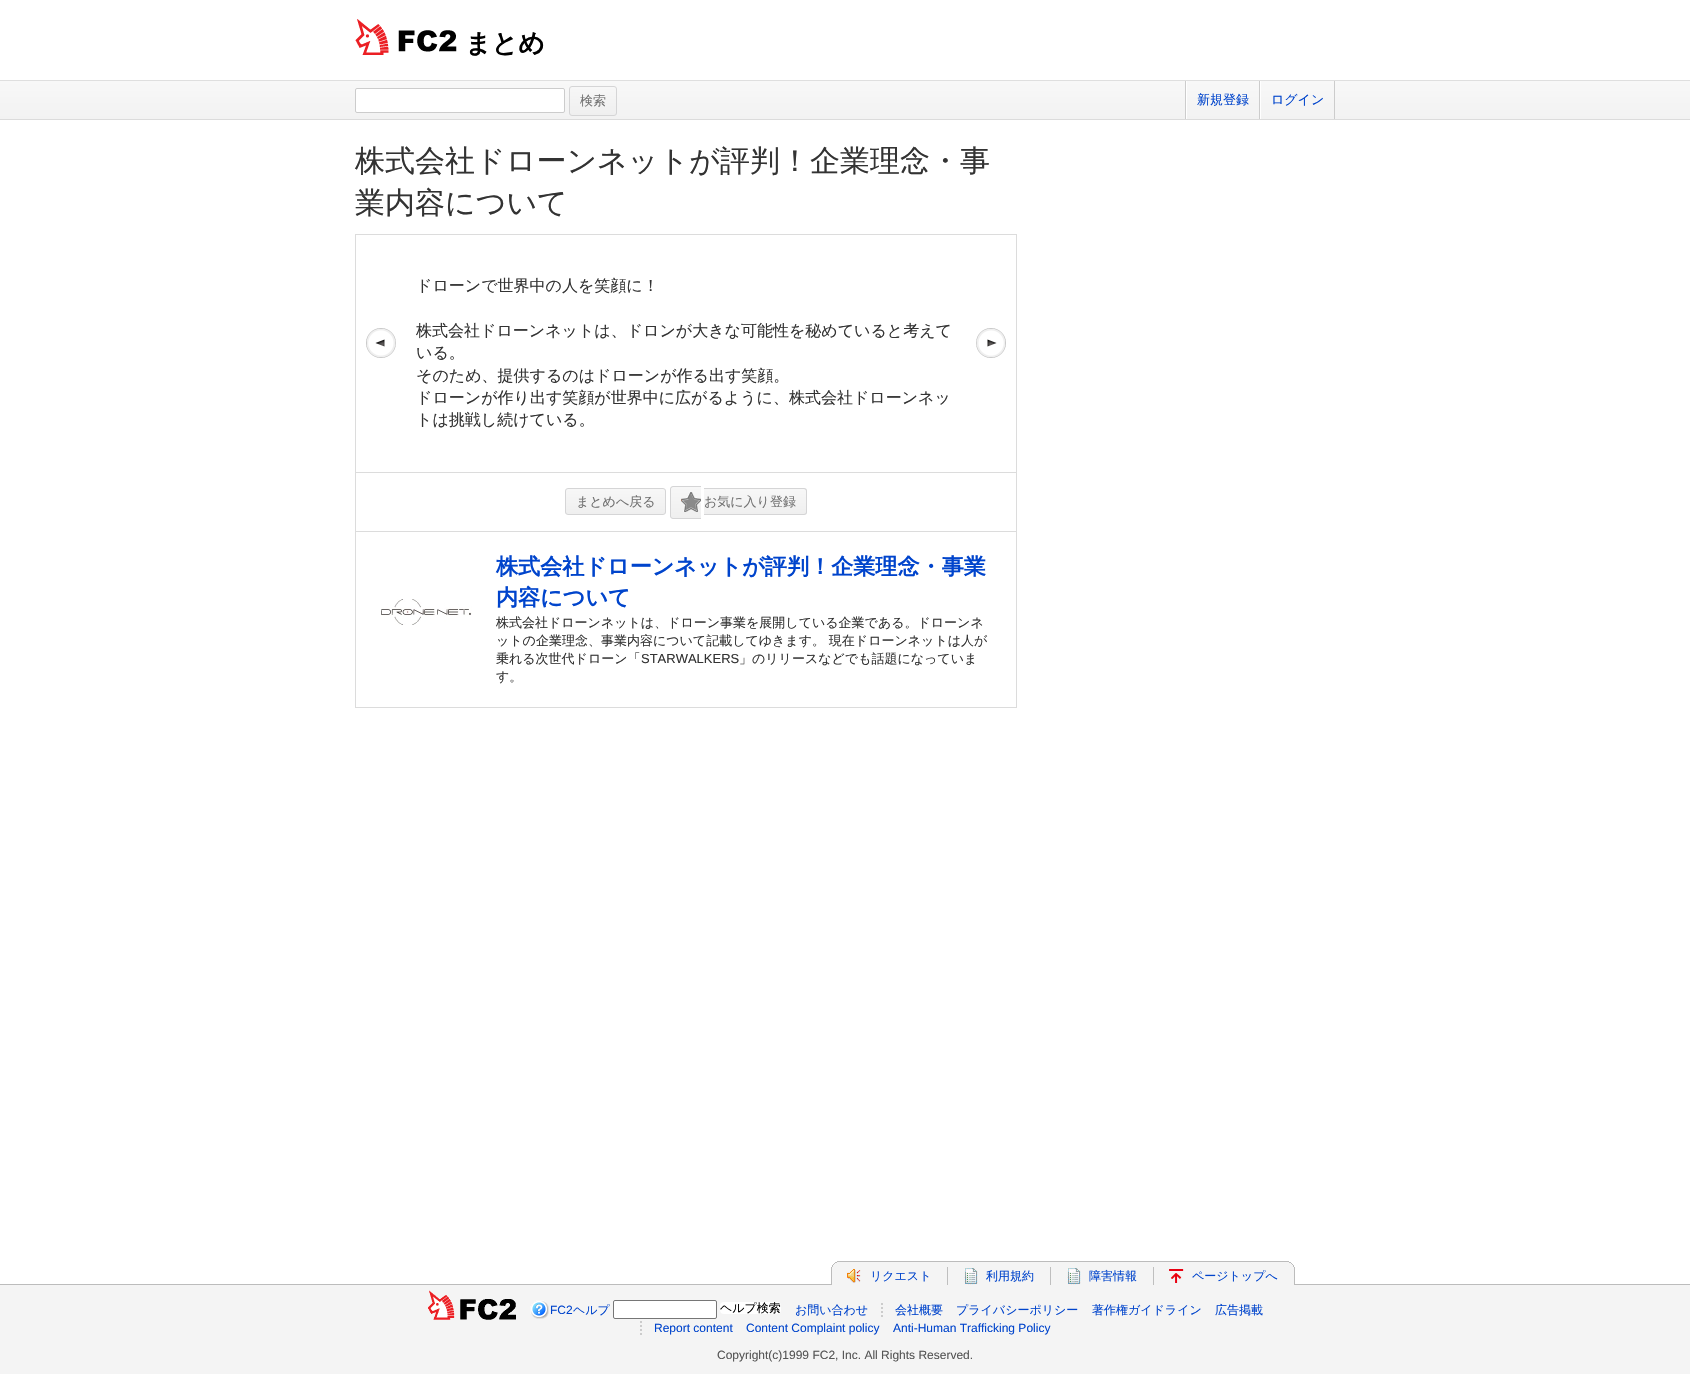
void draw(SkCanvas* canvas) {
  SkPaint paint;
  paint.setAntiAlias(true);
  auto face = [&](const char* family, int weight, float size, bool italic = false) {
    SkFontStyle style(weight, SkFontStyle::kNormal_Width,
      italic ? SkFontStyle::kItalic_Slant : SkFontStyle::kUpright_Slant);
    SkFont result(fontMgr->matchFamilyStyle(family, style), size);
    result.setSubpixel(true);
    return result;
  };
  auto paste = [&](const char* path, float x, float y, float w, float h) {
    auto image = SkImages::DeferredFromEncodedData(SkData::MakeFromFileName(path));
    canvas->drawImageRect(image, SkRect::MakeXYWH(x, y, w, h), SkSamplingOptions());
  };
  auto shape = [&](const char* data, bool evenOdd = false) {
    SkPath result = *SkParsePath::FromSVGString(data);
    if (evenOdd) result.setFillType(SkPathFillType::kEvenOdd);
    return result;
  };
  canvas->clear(0xffffffff);
  paste("img/1.png", 355, 19, 102, 36);
  {
    const SkColor colors[] = {0xfff8f8f8, 0xfff2f2f2};
    const float stops[] = {0, 1};
    const SkPoint ends[] = {{845, 81}, {845, 119}};
    paint.setShader(SkGradientShader::MakeLinear(ends, colors, stops, 2, SkTileMode::kClamp));
    paint.setAlpha(255);
  }
  canvas->drawRect(SkRect::MakeXYWH(0, 81, 1690, 38), paint);
  paint.setShader(nullptr);
  paint.setColor(0xffdfdfdf);
  canvas->drawRect(SkRect::MakeXYWH(0, 80, 1690, 1), paint);
  paint.setColor(0xffdbdbdb);
  canvas->drawRect(SkRect::MakeXYWH(0, 119, 1690, 1), paint);
  paint.setColor(0xffffffff);
  canvas->drawRoundRect(SkRect::MakeXYWH(355.5f, 88.5f, 209, 24), 1.5f, 1.5f, paint);
  paint.setStroke(true);
  paint.setStrokeWidth(1);
  paint.setColor(0xffcccccc);
  canvas->drawRoundRect(SkRect::MakeXYWH(355.5f, 88.5f, 209, 24), 1.5f, 1.5f, paint);
  canvas->save();
  canvas->clipPath(shape("M572 86H614C615.5 86 617 87.5 617 89V113C617 114.5 615.5 116 614 116H572C570.5 116 569 114.5 569 113V89C569 87.5 570.5 86 572 86Z"), true);
  paint.setStroke(false);
  {
    const SkColor colors[] = {0xfff7f7f7, 0xffefefef};
    const float stops[] = {0, 1};
    const SkPoint ends[] = {{593, 87}, {593, 115}};
    paint.setShader(SkGradientShader::MakeLinear(ends, colors, stops, 2, SkTileMode::kClamp));
    paint.setAlpha(255);
  }
  canvas->drawRect(SkRect::MakeXYWH(569, 87, 48, 28), paint);
  canvas->restore();
  paint.setStroke(true);
  paint.setShader(nullptr);
  paint.setColor(0xffd5d5d6);
  canvas->drawRoundRect(SkRect::MakeXYWH(569.5f, 86.5f, 47, 29), 2.5f, 2.5f, paint);
  paint.setStroke(false);
  {
    const struct { float x, y, w, h; SkColor color; } items[] = {
      {1185, 81, 1, 38, 0xffcccccc},
      {1186, 81, 1, 38, 0xffffffff},
      {1334, 81, 1, 38, 0xffcccccc},
      {1259, 81, 1, 38, 0xffcccccc},
      {1260, 81, 1, 38, 0xffffffff},
    };
    for (auto [x, y, w, h, color] : items) {
      paint.setColor(color);
      canvas->drawRect(SkRect::MakeXYWH(x, y, w, h), paint);
    }
  }
  paint.setStroke(true);
  paint.setColor(0xffdcdcdc);
  canvas->drawRect(SkRect::MakeXYWH(355.5f, 234.5f, 661, 238), paint);
  paste("img/2.png", 366, 328, 30, 30);
  paste("img/3.png", 976, 328, 30, 30);
  paint.setStroke(false);
  canvas->drawRect(SkRect::MakeXYWH(1016, 473, 1, 58), paint);
  canvas->drawRect(SkRect::MakeXYWH(355, 473, 1, 58), paint);
  canvas->save();
  canvas->clipPath(shape("M568 488H663C664.5 488 666 489.5 666 491V512C666 513.5 664.5 515 663 515H568C566.5 515 565 513.5 565 512V491C565 489.5 566.5 488 568 488Z"), true);
  {
    const SkColor colors[] = {0xfff7f7f7, 0xffefefef};
    const float stops[] = {0, 1};
    const SkPoint ends[] = {{616, 489}, {616, 514}};
    paint.setShader(SkGradientShader::MakeLinear(ends, colors, stops, 2, SkTileMode::kClamp));
    paint.setAlpha(255);
  }
  canvas->drawRect(SkRect::MakeXYWH(565, 489, 101, 25), paint);
  canvas->restore();
  paint.setStroke(true);
  paint.setShader(nullptr);
  paint.setColor(0xffd5d5d6);
  canvas->drawRoundRect(SkRect::MakeXYWH(565.5f, 488.5f, 100, 26), 2.5f, 2.5f, paint);
  canvas->save();
  canvas->clipPath(shape("M673 486H701V519H673C671.5 519 670 517.5 670 516V489C670 487.5 671.5 486 673 486Z"), true);
  paint.setStroke(false);
  {
    const SkColor colors[] = {0xfff7f7f7, 0xffefefef};
    const float stops[] = {0, 1};
    const SkPoint ends[] = {{686, 487}, {686, 518}};
    paint.setShader(SkGradientShader::MakeLinear(ends, colors, stops, 2, SkTileMode::kClamp));
    paint.setAlpha(255);
  }
  canvas->drawRect(SkRect::MakeXYWH(670, 487, 31, 31), paint);
  canvas->restore();
  paint.setShader(nullptr);
  paint.setColor(0xffd5d5d6);
  canvas->drawPath(shape("M673 486H701V519H673C671.5 519 670 517.5 670 516V489C670 487.5 671.5 486 673 486ZM673 487H701V518H673C672 518 671 517 671 516V489C671 488 672 487 673 487Z", true), paint);
  paste("img/4.png", 681, 492, 20, 20);
  canvas->save();
  canvas->clipPath(shape("M704 488H804C805.5 488 807 489.5 807 491V512C807 513.5 805.5 515 804 515H704Z"), true);
  {
    const SkColor colors[] = {0xfff7f7f7, 0xffefefef};
    const float stops[] = {0, 1};
    const SkPoint ends[] = {{755, 489}, {755, 514}};
    paint.setShader(SkGradientShader::MakeLinear(ends, colors, stops, 2, SkTileMode::kClamp));
    paint.setAlpha(255);
  }
  canvas->drawRect(SkRect::MakeXYWH(704, 489, 103, 25), paint);
  canvas->restore();
  paint.setShader(nullptr);
  paint.setColor(0xffd5d5d6);
  canvas->drawPath(shape("M704 488H804C806 488 807 489 807 491V512C807 514 806 515 804 515H704ZM704 489H804C805 489 806 490 806 491V512C806 513 805 514 804 514H704Z", true), paint);
  paint.setStroke(true);
  paint.setColor(0xffdcdcdc);
  canvas->drawRect(SkRect::MakeXYWH(355.5f, 531.5f, 661, 176), paint);
  paste("img/5.png", 381, 599, 91, 26);
  paint.setStroke(false);
  {
    const struct { float x, y, w, h; SkColor color; } items[] = {
      {837, 1261, 452, 1, 0xffbcbcbc},
      {835, 1262, 456, 1, 0xfff4f4f4},
      {1289, 1262, 2, 1, 0xffbcbcbc},
      {835, 1262, 2, 1, 0xffbcbcbc},
      {834, 1263, 458, 1, 0xfff4f4f4},
      {1291, 1263, 1, 1, 0xffbcbcbc},
      {834, 1263, 1, 1, 0xffbcbcbc},
      {833, 1264, 460, 1, 0xfff4f4f4},
      {1292, 1264, 1, 1, 0xffbcbcbc},
      {833, 1264, 1, 1, 0xffbcbcbc},
      {0, 1284, 1690, 1, 0xffbcbcbc},
      {832, 1265, 462, 20, 0xfff4f4f4},
      {1293, 1265, 1, 2, 0xffbcbcbc},
      {832, 1265, 1, 2, 0xffbcbcbc},
      {1294, 1267, 1, 18, 0xffbcbcbc},
      {831, 1267, 1, 18, 0xffbcbcbc},
    };
    for (auto [x, y, w, h, color] : items) {
      paint.setColor(color);
      canvas->drawRect(SkRect::MakeXYWH(x, y, w, h), paint);
    }
  }
  paste("img/6.png", 846, 1269, 15, 14);
  paint.setColor(0xffbfbfbf);
  canvas->drawRect(SkRect::MakeXYWH(947, 1267, 1, 18), paint);
  paste("img/7.png", 964, 1268, 14, 17);
  canvas->drawRect(SkRect::MakeXYWH(1050, 1267, 1, 18), paint);
  paste("img/7.png", 1067, 1268, 14, 17);
  canvas->drawRect(SkRect::MakeXYWH(1153, 1267, 1, 18), paint);
  paste("img/8.png", 1169, 1269, 15, 14);
  paint.setColor(0xfff4f4f4);
  canvas->drawRect(SkRect::MakeXYWH(0, 1285, 1690, 89), paint);
  paste("img/9.png", 428, 1290, 88, 30);
  paste("img/10.png", 530, 1300, 19, 19);
  paint.setColor(0xffffffff);
  canvas->drawRoundRect(SkRect::MakeXYWH(613.5f, 1300.5f, 103, 18), 1.5f, 1.5f, paint);
  paint.setStroke(true);
  paint.setColor(0xff767676);
  canvas->drawRoundRect(SkRect::MakeXYWH(613.5f, 1300.5f, 103, 18), 1.5f, 1.5f, paint);
  paint.setStroke(false);
  paint.setColor(0xffffffff);
  canvas->drawRoundRect(SkRect::MakeXYWH(720, 1302, 61, 12), 4, 4, paint);
  paint.setStroke(true);
  paint.setStrokeWidth(2);
  paint.setColor(0xffcccccc);
  canvas->drawPath(shape("M882 1303V1305M882 1307V1309M882 1311V1313M882 1315V1317"), paint);
  canvas->drawPath(shape("M641 1321V1323M641 1325V1327M641 1329V1331M641 1333V1335"), paint);
  auto f0 = face("WenQuanYi Zen Hei", 700, 26);
  paint.setStroke(false);
  paint.setColor(0xff000000);
  canvas->drawString("まとめ", 465, 52, f0, paint);
  auto f1 = face("WenQuanYi Zen Hei", 500, 13);
  paint.setColor(0xff727272);
  canvas->drawString("検索", 580, 105, f1, paint);
  paint.setColor(0xff0044cc);
  canvas->drawString("新規登録", 1197, 104, f1, paint);
  canvas->drawString("ログイン", 1271, 104, f1, paint);
  auto f2 = face("WenQuanYi Zen Hei", 500, 30);
  paint.setColor(0xff333333);
  canvas->drawString("株式会社ドローンネットが評判！企業理念・事", 355, 171, f2, paint);
  canvas->drawString("業内容について", 355, 213, f2, paint);
  auto f3 = face("WenQuanYi Zen Hei", 500, 16);
  {
    const struct { const char* s; float x, y; } items[] = {
      {"ドローンで世界中の人を笑顔に！", 416, 291},
      {"株式会社ドローンネットは、ドロンが大きな可能性を秘めていると考えて", 416, 336},
      {"いる。", 416, 358},
      {"そのため、提供するのはドローンが作る出す笑顔。", 416, 381},
      {"ドローンが作り出す笑顔が世界中に広がるように、株式会社ドローンネッ", 416, 403},
      {"トは挑戦し続けている。", 416, 425},
    };
    for (auto [s, x, y] : items) {
      canvas->drawString(s, x, y, f3, paint);
    }
  }
  paint.setColor(0xff727272);
  canvas->drawString("まとめへ戻る", 576, 506, f1, paint);
  canvas->drawString("お気に入り登録", 704, 506, f1, paint);
  auto f4 = face("WenQuanYi Zen Hei", 700, 22.1f);
  paint.setColor(0xff0044cc);
  canvas->drawString("株式会社ドローンネットが評判！企業理念・事業", 496, 574, f4, paint);
  canvas->drawString("内容について", 496, 605, f4, paint);
  paint.setColor(0xff333333);
  {
    const struct { const char* s; float x, y; } items[] = {
      {"株式会社ドローンネットは、ドローン事業を展開している企業である。ドローンネ", 496, 627},
      {"ットの企業理念、事業内容について記載してゆきます。 現在ドローンネットは人が", 496, 645},
      {"乗れる次世代ドローン「", 496, 663},
    };
    for (auto [s, x, y] : items) {
      canvas->drawString(s, x, y, f1, paint);
    }
  }
  auto f5 = face("Liberation Sans", 400, 13);
  canvas->drawString("STARWALKERS", 641, 663, f5, paint);
  canvas->drawString("」のリリースなどでも話題になっていま", 739, 663, f1, paint);
  canvas->drawString("す。", 496, 681, f1, paint);
  auto f6 = face("WenQuanYi Zen Hei", 500, 12);
  paint.setColor(0xff0044cc);
  {
    const struct { const char* s; float x, y; } items[] = {
      {"リクエスト", 870, 1280},
      {"利用規約", 986, 1280},
      {"障害情報", 1089, 1280},
      {"ページトップへ", 1192, 1280},
    };
    for (auto [s, x, y] : items) {
      canvas->drawString(s, x, y, f6, paint);
    }
  }
  auto f7 = face("Liberation Sans", 400, 12);
  canvas->drawString("FC2", 550, 1314, f7, paint);
  canvas->drawString("ヘルプ", 573, 1314, f6, paint);
  canvas->save();
  canvas->clipPath(shape("M724 1302H777C779 1302 781 1304 781 1306V1310C781 1312 779 1314 777 1314H724C722 1314 720 1312 720 1310V1306C720 1304 722 1302 724 1302Z"), true);
  paint.setColor(0xff000000);
  canvas->drawString("ヘルプ検索", 720, 1312, f6, paint);
  canvas->restore();
  paint.setColor(0xff0044cc);
  {
    const struct { const char* s; float x, y; } items[] = {
      {"お問い合わせ", 795, 1314},
      {"会社概要", 895, 1314},
      {"プライバシーポリシー", 956, 1314},
      {"著作権ガイドライン", 1092, 1314},
      {"広告掲載", 1215, 1314},
    };
    for (auto [s, x, y] : items) {
      canvas->drawString(s, x, y, f6, paint);
    }
  }
  {
    const struct { const char* s; float x, y; } items[] = {
      {"Report content", 654, 1332},
      {"Content Complaint policy", 746, 1332},
      {"Anti-Human Trafficking Policy", 893, 1332},
    };
    for (auto [s, x, y] : items) {
      canvas->drawString(s, x, y, f7, paint);
    }
  }
  paint.setColor(0xff555555);
  canvas->drawString("Copyright(c)1999 FC2, Inc. All Rights Reserved.", 717, 1359, f7, paint);
}
